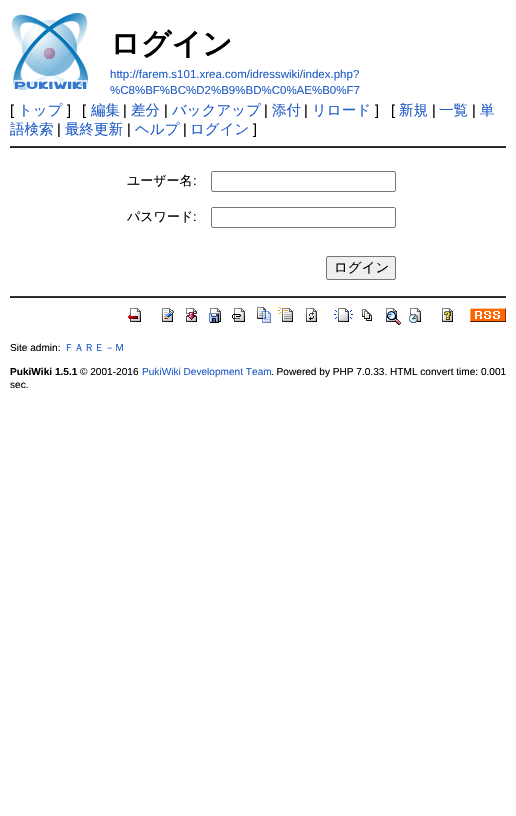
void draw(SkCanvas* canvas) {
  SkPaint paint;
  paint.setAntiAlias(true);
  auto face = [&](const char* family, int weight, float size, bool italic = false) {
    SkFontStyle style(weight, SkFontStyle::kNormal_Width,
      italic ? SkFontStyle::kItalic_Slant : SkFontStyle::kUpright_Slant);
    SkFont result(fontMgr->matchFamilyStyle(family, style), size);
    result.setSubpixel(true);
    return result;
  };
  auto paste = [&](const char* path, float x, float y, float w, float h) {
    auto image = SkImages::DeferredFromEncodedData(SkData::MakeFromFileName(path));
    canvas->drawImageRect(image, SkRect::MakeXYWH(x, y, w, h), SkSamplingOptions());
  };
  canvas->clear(0xffffffff);
  paste("img/1.png", 12, 13, 76, 77);
  paint.setColor(0xff333333);
  canvas->drawRect(SkRect::MakeXYWH(10, 146, 496, 1), paint);
  paint.setColor(0xff222222);
  canvas->drawRect(SkRect::MakeXYWH(10, 147, 496, 1), paint);
  paint.setStroke(true);
  paint.setStrokeWidth(1);
  paint.setColor(0xff767676);
  canvas->drawRoundRect(SkRect::MakeXYWH(211.5f, 171.5f, 184, 20), 1.5f, 1.5f, paint);
  canvas->drawRoundRect(SkRect::MakeXYWH(211.5f, 207.5f, 184, 20), 1.5f, 1.5f, paint);
  paint.setStroke(false);
  paint.setColor(0xffefefef);
  canvas->drawRoundRect(SkRect::MakeXYWH(326.5f, 256.5f, 69, 23), 1.5f, 1.5f, paint);
  paint.setStroke(true);
  paint.setColor(0xff767676);
  canvas->drawRoundRect(SkRect::MakeXYWH(326.5f, 256.5f, 69, 23), 1.5f, 1.5f, paint);
  paint.setStroke(false);
  paint.setColor(0xff333333);
  canvas->drawRect(SkRect::MakeXYWH(10, 296, 496, 1), paint);
  paint.setColor(0xff222222);
  canvas->drawRect(SkRect::MakeXYWH(10, 297, 496, 1), paint);
  paste("img/2.png", 128, 308, 13, 14);
  paste("img/3.png", 162, 308, 12, 14);
  paste("img/4.png", 186, 308, 11, 14);
  paste("img/5.png", 209, 308, 12, 15);
  paste("img/6.png", 232, 308, 13, 14);
  paste("img/7.png", 257, 307, 14, 16);
  paste("img/8.png", 278, 307, 15, 15);
  paste("img/9.png", 306, 308, 11, 14);
  paste("img/10.png", 334, 308, 19, 14);
  paste("img/11.png", 362, 309, 10, 12);
  paste("img/12.png", 386, 308, 15, 17);
  paste("img/13.png", 409, 308, 12, 15);
  paste("img/14.png", 442, 308, 11, 14);
  paste("img/15.png", 470, 308, 36, 14);
  auto f0 = face("WenQuanYi Zen Hei", 700, 30);
  paint.setColor(0xff000000);
  canvas->drawString("ログイン", 110, 54, f0, paint);
  auto f1 = face("Liberation Sans", 400, 11.5f);
  paint.setColor(0xff215dc6);
  canvas->drawString("http://farem.s101.xrea.com/idresswiki/index.php?", 110, 78, f1, paint);
  canvas->drawString("%C8%BF%BC%D2%B9%BD%C0%AE%B0%F7", 110, 94, f1, paint);
  auto f2 = face("Liberation Sans", 400, 14.5f);
  paint.setColor(0xff000000);
  canvas->drawString("[", 10, 115, f2, paint);
  auto f3 = face("WenQuanYi Zen Hei", 500, 14.5f);
  paint.setColor(0xff215dc6);
  canvas->drawString("トップ", 18, 115, f3, paint);
  paint.setColor(0xff000000);
  canvas->drawString("]", 67, 115, f2, paint);
  canvas->drawString("[", 82, 115, f2, paint);
  paint.setColor(0xff215dc6);
  canvas->drawString("編集", 91, 115, f3, paint);
  paint.setColor(0xff000000);
  canvas->drawString("|", 123, 115, f2, paint);
  paint.setColor(0xff215dc6);
  canvas->drawString("差分", 131, 115, f3, paint);
  paint.setColor(0xff000000);
  canvas->drawString("|", 164, 115, f2, paint);
  paint.setColor(0xff215dc6);
  canvas->drawString("バックアップ", 172, 115, f3, paint);
  paint.setColor(0xff000000);
  canvas->drawString("|", 264, 115, f2, paint);
  paint.setColor(0xff215dc6);
  canvas->drawString("添付", 272, 115, f3, paint);
  paint.setColor(0xff000000);
  canvas->drawString("|", 304, 115, f2, paint);
  paint.setColor(0xff215dc6);
  canvas->drawString("リロード", 312, 115, f3, paint);
  paint.setColor(0xff000000);
  canvas->drawString("]", 375, 115, f2, paint);
  canvas->drawString("[", 391, 115, f2, paint);
  paint.setColor(0xff215dc6);
  canvas->drawString("新規", 399, 115, f3, paint);
  paint.setColor(0xff000000);
  canvas->drawString("|", 432, 115, f2, paint);
  paint.setColor(0xff215dc6);
  canvas->drawString("一覧", 439, 115, f3, paint);
  paint.setColor(0xff000000);
  canvas->drawString("|", 472, 115, f2, paint);
  paint.setColor(0xff215dc6);
  canvas->drawString("単", 480, 115, f3, paint);
  canvas->drawString("語検索", 10, 134, f3, paint);
  paint.setColor(0xff000000);
  canvas->drawString("|", 57, 134, f2, paint);
  paint.setColor(0xff215dc6);
  canvas->drawString("最終更新", 65, 134, f3, paint);
  paint.setColor(0xff000000);
  canvas->drawString("|", 127, 134, f2, paint);
  paint.setColor(0xff215dc6);
  canvas->drawString("ヘルプ", 135, 134, f3, paint);
  paint.setColor(0xff000000);
  canvas->drawString("|", 183, 134, f2, paint);
  paint.setColor(0xff215dc6);
  canvas->drawString("ログイン", 190, 134, f3, paint);
  paint.setColor(0xff000000);
  canvas->drawString("]", 253, 134, f2, paint);
  auto f4 = face("WenQuanYi Zen Hei", 500, 13);
  canvas->drawString("ユーザー名", 127, 185, f4, paint);
  auto f5 = face("Liberation Sans", 400, 13);
  canvas->drawString(":", 193, 185, f5, paint);
  canvas->drawString("パスワード", 127, 221, f4, paint);
  canvas->drawString(":", 193, 221, f5, paint);
  auto f6 = face("WenQuanYi Zen Hei", 500, 13.5f);
  canvas->drawString("ログイン", 334, 272, f6, paint);
  auto f7 = face("Liberation Sans", 400, 10.1f);
  canvas->drawString("Site admin:", 10, 351, f7, paint);
  auto f8 = face("WenQuanYi Zen Hei", 500, 10.1f);
  paint.setColor(0xff215dc6);
  canvas->drawString("ＦＡＲＥ－Ｍ", 64, 351, f8, paint);
  auto f9 = face("Liberation Sans", 700, 10.1f);
  paint.setColor(0xff000000);
  canvas->drawString("PukiWiki 1.5.1", 10, 375, f9, paint);
  canvas->drawString("© 2001-2016", 80, 375, f7, paint);
  paint.setColor(0xff215dc6);
  canvas->drawString("PukiWiki Development Team", 142, 375, f7, paint);
  paint.setColor(0xff000000);
  canvas->drawString(". Powered by PHP 7.0.33. HTML convert time: 0.001", 271, 375, f7, paint);
  canvas->drawString("sec.", 10, 388, f7, paint);
}
